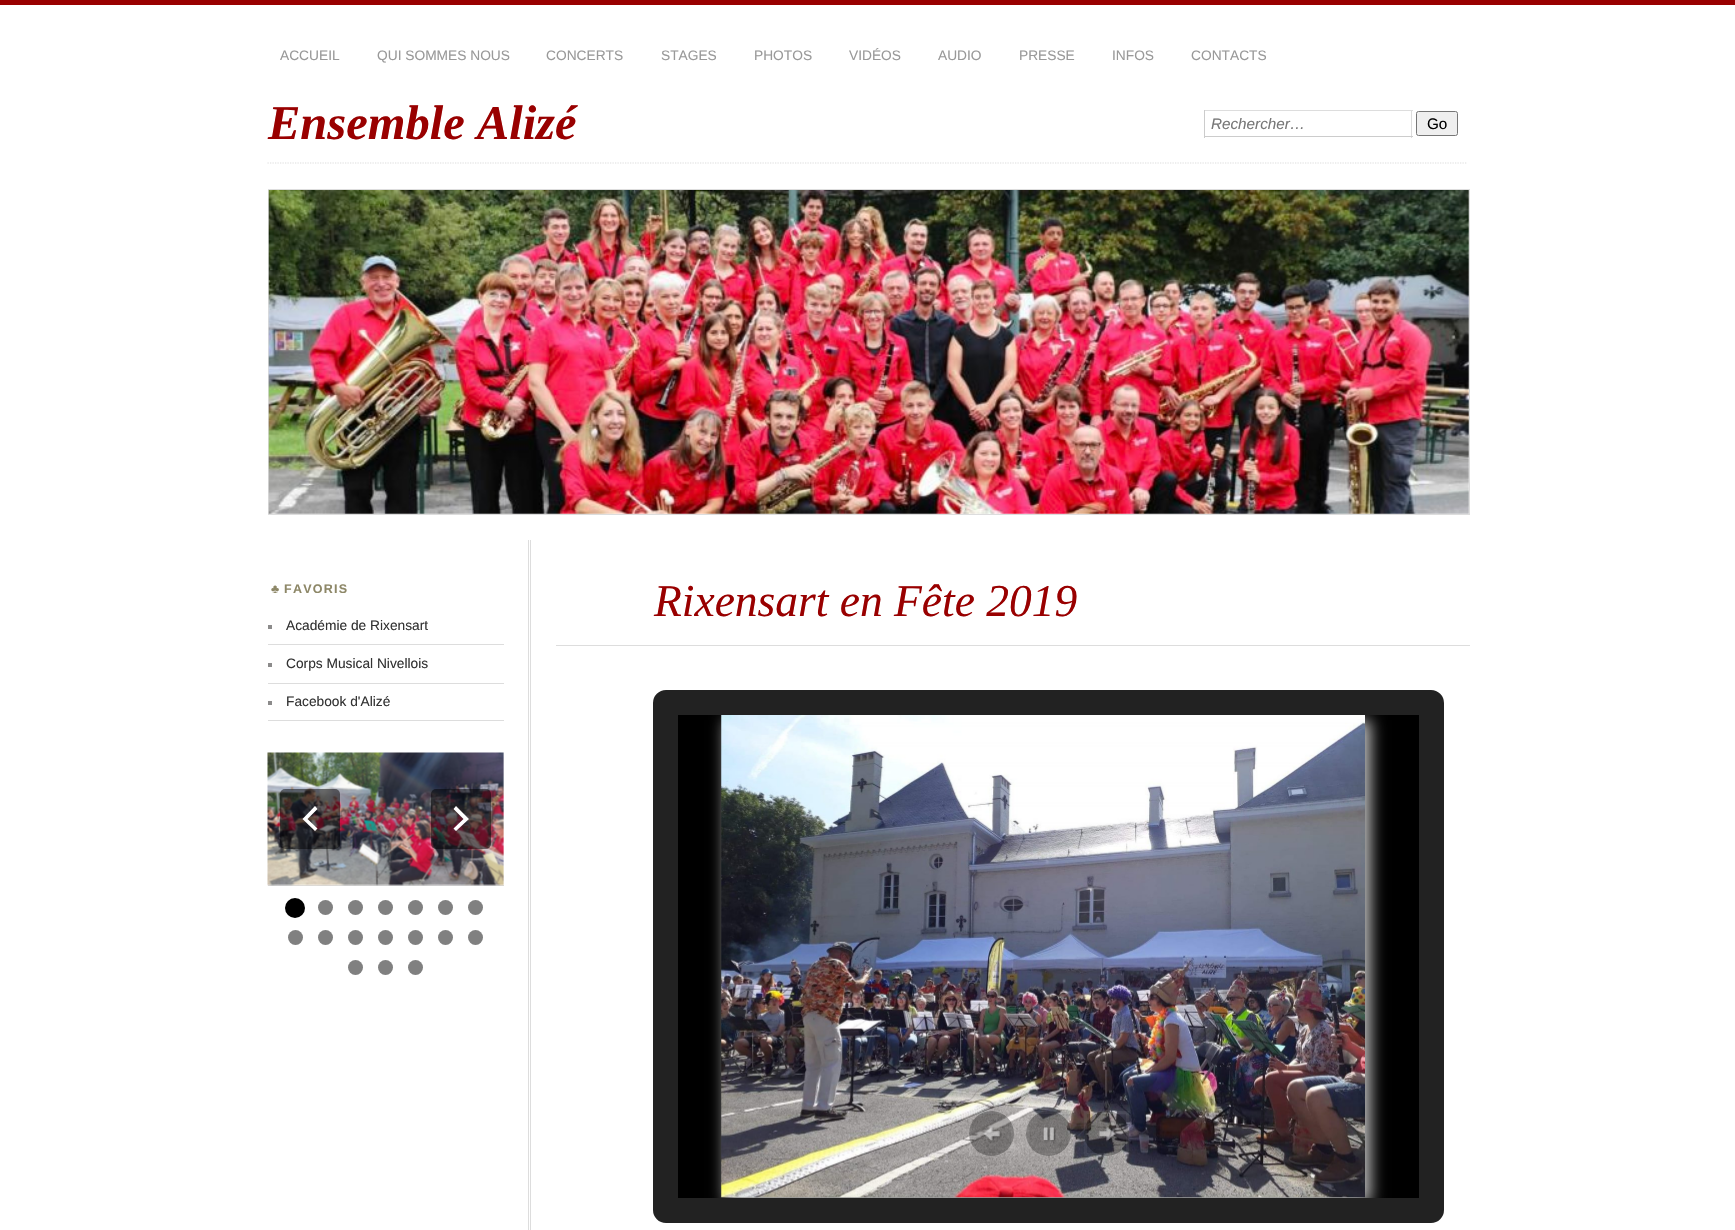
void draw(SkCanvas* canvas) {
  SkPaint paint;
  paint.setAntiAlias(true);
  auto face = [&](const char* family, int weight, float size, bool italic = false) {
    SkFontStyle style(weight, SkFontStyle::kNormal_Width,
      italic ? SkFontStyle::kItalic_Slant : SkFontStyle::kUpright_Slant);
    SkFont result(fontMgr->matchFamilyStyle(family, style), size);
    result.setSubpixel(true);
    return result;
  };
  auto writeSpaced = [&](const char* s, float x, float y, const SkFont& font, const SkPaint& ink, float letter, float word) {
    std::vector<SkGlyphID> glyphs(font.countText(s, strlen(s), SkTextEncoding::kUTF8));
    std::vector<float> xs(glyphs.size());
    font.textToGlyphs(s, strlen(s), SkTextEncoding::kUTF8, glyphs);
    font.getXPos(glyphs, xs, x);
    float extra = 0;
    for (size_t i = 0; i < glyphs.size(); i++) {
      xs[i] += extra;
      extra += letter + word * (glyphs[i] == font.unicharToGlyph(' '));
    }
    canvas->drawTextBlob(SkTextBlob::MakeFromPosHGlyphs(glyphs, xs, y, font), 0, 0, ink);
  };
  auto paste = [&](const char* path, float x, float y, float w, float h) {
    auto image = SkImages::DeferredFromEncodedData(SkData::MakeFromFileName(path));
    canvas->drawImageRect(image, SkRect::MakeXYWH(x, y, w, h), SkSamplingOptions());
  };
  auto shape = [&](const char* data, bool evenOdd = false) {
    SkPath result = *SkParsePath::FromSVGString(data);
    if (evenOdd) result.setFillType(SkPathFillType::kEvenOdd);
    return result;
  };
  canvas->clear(0xffffffff);
  {
    const struct { float x, y, w, h; SkColor color; } items[] = {
      {0, 0, 1735, 5, 0xff990000},
      {1204, 110, 209, 1, 0xffdddddd},
      {1411, 110, 1, 28, 0xffdddddd},
      {1204, 136, 209, 1, 0xffcccccc},
      {1204, 110, 1, 28, 0xffcccccc},
    };
    for (auto [x, y, w, h, color] : items) {
      paint.setColor(color);
      canvas->drawRect(SkRect::MakeXYWH(x, y, w, h), paint);
    }
  }
  paint.setColor(0xffefefef);
  canvas->drawRoundRect(SkRect::MakeXYWH(1416.5f, 111.5f, 41, 24), 2, 2, paint);
  paint.setStroke(true);
  paint.setStrokeWidth(1);
  paint.setColor(0xff767676);
  canvas->drawRoundRect(SkRect::MakeXYWH(1416.5f, 111.5f, 41, 24), 2, 2, paint);
  paint.setStrokeWidth(1.2f);
  paint.setColor(0xffdddddd);
  paint.setPathEffect(SkDashPathEffect::Make({{1.25f, 1.25f}}, 0));
  canvas->drawPath(shape("M267.5 163H1467.5"), paint);
  paint.setPathEffect(nullptr);
  paint.setStrokeWidth(1);
  canvas->drawRect(SkRect::MakeXYWH(268.5f, 189.5f, 1201, 325), paint);
  paste("img/1.png", 268, 190, 1201, 324);
  paint.setStroke(false);
  {
    const struct { float x, y, w, h; SkColor color; } items[] = {
      {268, 644, 236, 1, 0xffdddddd},
      {268, 625, 4, 4, 0xff8c8b8b},
      {268, 683, 236, 1, 0xffdddddd},
      {268, 663, 4, 4, 0xff8c8b8b},
      {268, 720, 236, 1, 0xffdddddd},
      {268, 701, 4, 4, 0xff8c8b8b},
      {268, 885, 236, 1, 0xffdddddd},
    };
    for (auto [x, y, w, h, color] : items) {
      paint.setColor(color);
      canvas->drawRect(SkRect::MakeXYWH(x, y, w, h), paint);
    }
  }
  paste("img/2.png", 267, 752, 237, 134);
  paint.setColor(0x80000000);
  canvas->drawRoundRect(SkRect::MakeXYWH(280, 789, 60, 60), 5, 5, paint);
  paint.setColor(0xffffffff);
  canvas->drawPath(shape("M317.5 809L307.5 819L317.5 828.5L315 831L302.5 819L315 806Z"), paint);
  paint.setColor(0x80000000);
  canvas->drawRoundRect(SkRect::MakeXYWH(431, 789, 60, 60), 5, 5, paint);
  paint.setColor(0xffffffff);
  canvas->drawPath(shape("M453.5 809L463.5 819L453.5 828.5L456 831L469 819L456 806Z"), paint);
  paint.setColor(0xff000000);
  canvas->drawCircle(295, 908, 10, paint);
  paint.setColor(0xff808080);
  canvas->drawCircle(325.5f, 907.5f, 7.5f, paint);
  canvas->drawCircle(355.5f, 907.5f, 7.5f, paint);
  canvas->drawCircle(385.5f, 907.5f, 7.5f, paint);
  canvas->drawCircle(415.5f, 907.5f, 7.5f, paint);
  canvas->drawCircle(445.5f, 907.5f, 7.5f, paint);
  canvas->drawCircle(475.5f, 907.5f, 7.5f, paint);
  canvas->drawCircle(295.5f, 937.5f, 7.5f, paint);
  canvas->drawCircle(325.5f, 937.5f, 7.5f, paint);
  canvas->drawCircle(355.5f, 937.5f, 7.5f, paint);
  canvas->drawCircle(385.5f, 937.5f, 7.5f, paint);
  canvas->drawCircle(415.5f, 937.5f, 7.5f, paint);
  canvas->drawCircle(445.5f, 937.5f, 7.5f, paint);
  canvas->drawCircle(475.5f, 937.5f, 7.5f, paint);
  canvas->drawCircle(355.5f, 967.5f, 7.5f, paint);
  canvas->drawCircle(385.5f, 967.5f, 7.5f, paint);
  canvas->drawCircle(415.5f, 967.5f, 7.5f, paint);
  {
    const struct { float x, y, w, h; SkColor color; } items[] = {
      {528, 540, 1, 690, 0xffdddddd},
      {530, 540, 1, 690, 0xffdddddd},
      {556, 645, 914, 1, 0xffdddddd},
    };
    for (auto [x, y, w, h, color] : items) {
      paint.setColor(color);
      canvas->drawRect(SkRect::MakeXYWH(x, y, w, h), paint);
    }
  }
  paint.setStroke(true);
  paint.setStrokeWidth(25);
  paint.setColor(0xff222222);
  canvas->drawRoundRect(SkRect::MakeXYWH(665.5f, 702.5f, 766, 508), 0.5f, 0.5f, paint);
  paint.setStroke(false);
  paint.setColor(0xff000000);
  canvas->drawRect(SkRect::MakeXYWH(678, 715, 741, 483), paint);
  canvas->save();
  canvas->clipRect(SkRect::MakeXYWH(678, 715, 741, 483));
  paint.setColor(0xffcccccc);
  paint.setMaskFilter(SkMaskFilter::MakeBlur(kNormal_SkBlurStyle, 7.5f));
  canvas->drawRect(SkRect::MakeXYWH(726, 720, 644, 483), paint);
  paint.setMaskFilter(nullptr);
  canvas->restore();
  paste("img/3.png", 721, 715, 644, 483);
  paint.setColor(0x4d000000);
  canvas->drawCircle(991.5f, 1133.5f, 22.5f, paint);
  paste("img/4.png", 983, 1126, 19, 17);
  paint.setStroke(true);
  paint.setStrokeWidth(3);
  paint.setColor(0x0dffffff);
  canvas->drawRect(SkRect::MakeXYWH(970.5f, 1112.5f, 42, 42), paint);
  paint.setStroke(false);
  paint.setColor(0x4d000000);
  canvas->drawCircle(1048.5f, 1133.5f, 22.5f, paint);
  paste("img/5.png", 1043, 1127, 13, 16);
  paint.setStroke(true);
  paint.setColor(0x0dffffff);
  canvas->drawRect(SkRect::MakeXYWH(1027.5f, 1112.5f, 42, 42), paint);
  paint.setStroke(false);
  paint.setColor(0x4d000000);
  canvas->drawCircle(1106.5f, 1133.5f, 22.5f, paint);
  paste("img/6.png", 1098, 1126, 19, 16);
  paint.setStroke(true);
  paint.setColor(0x0dffffff);
  canvas->drawRect(SkRect::MakeXYWH(1085.5f, 1112.5f, 42, 42), paint);
  auto f0 = face("Liberation Sans", 400, 13.75f);
  paint.setStroke(false);
  paint.setColor(0xff999999);
  {
    const struct { const char* s; float x, y; } items[] = {
      {"ACCUEIL", 280, 60},
      {"QUI SOMMES NOUS", 377, 60},
      {"CONCERTS", 546, 60},
      {"STAGES", 661, 60},
      {"PHOTOS", 754, 60},
      {"VIDÉOS", 849, 60},
      {"AUDIO", 938, 60},
      {"PRESSE", 1019, 60},
      {"INFOS", 1112, 60},
      {"CONTACTS", 1191, 60},
    };
    for (auto [s, x, y] : items) {
      canvas->drawString(s, x, y, f0, paint);
    }
  }
  auto f1 = face("Liberation Serif", 700, 48.5f, true);
  paint.setColor(0xff990000);
  canvas->drawString("Ensemble Alizé", 268, 139, f1, paint);
  auto f2 = face("Liberation Sans", 400, 15.25f, true);
  paint.setColor(0xff777777);
  canvas->drawString("Rechercher…", 1211, 129, f2, paint);
  auto f3 = face("Liberation Sans", 400, 15.25f);
  paint.setColor(0xff000000);
  canvas->drawString("Go", 1427, 129, f3, paint);
  auto f4 = face("Liberation Sans", 700, 12.5f);
  paint.setColor(0xff8d8767);
  writeSpaced("♣", 271, 593, f4, paint, 1.25f, 0);
  writeSpaced("FAVORIS", 284, 593, f4, paint, 1.25f, 0);
  paint.setColor(0xff333333);
  {
    const struct { const char* s; float x, y; } items[] = {
      {"Académie de Rixensart", 286, 630},
      {"Corps Musical Nivellois", 286, 668},
      {"Facebook d'Alizé", 286, 706},
    };
    for (auto [s, x, y] : items) {
      canvas->drawString(s, x, y, f0, paint);
    }
  }
  auto f5 = face("Liberation Serif", 400, 45.5f, true);
  paint.setColor(0xff990000);
  canvas->drawString("Rixensart en Fête 2019", 654, 616, f5, paint);
}
